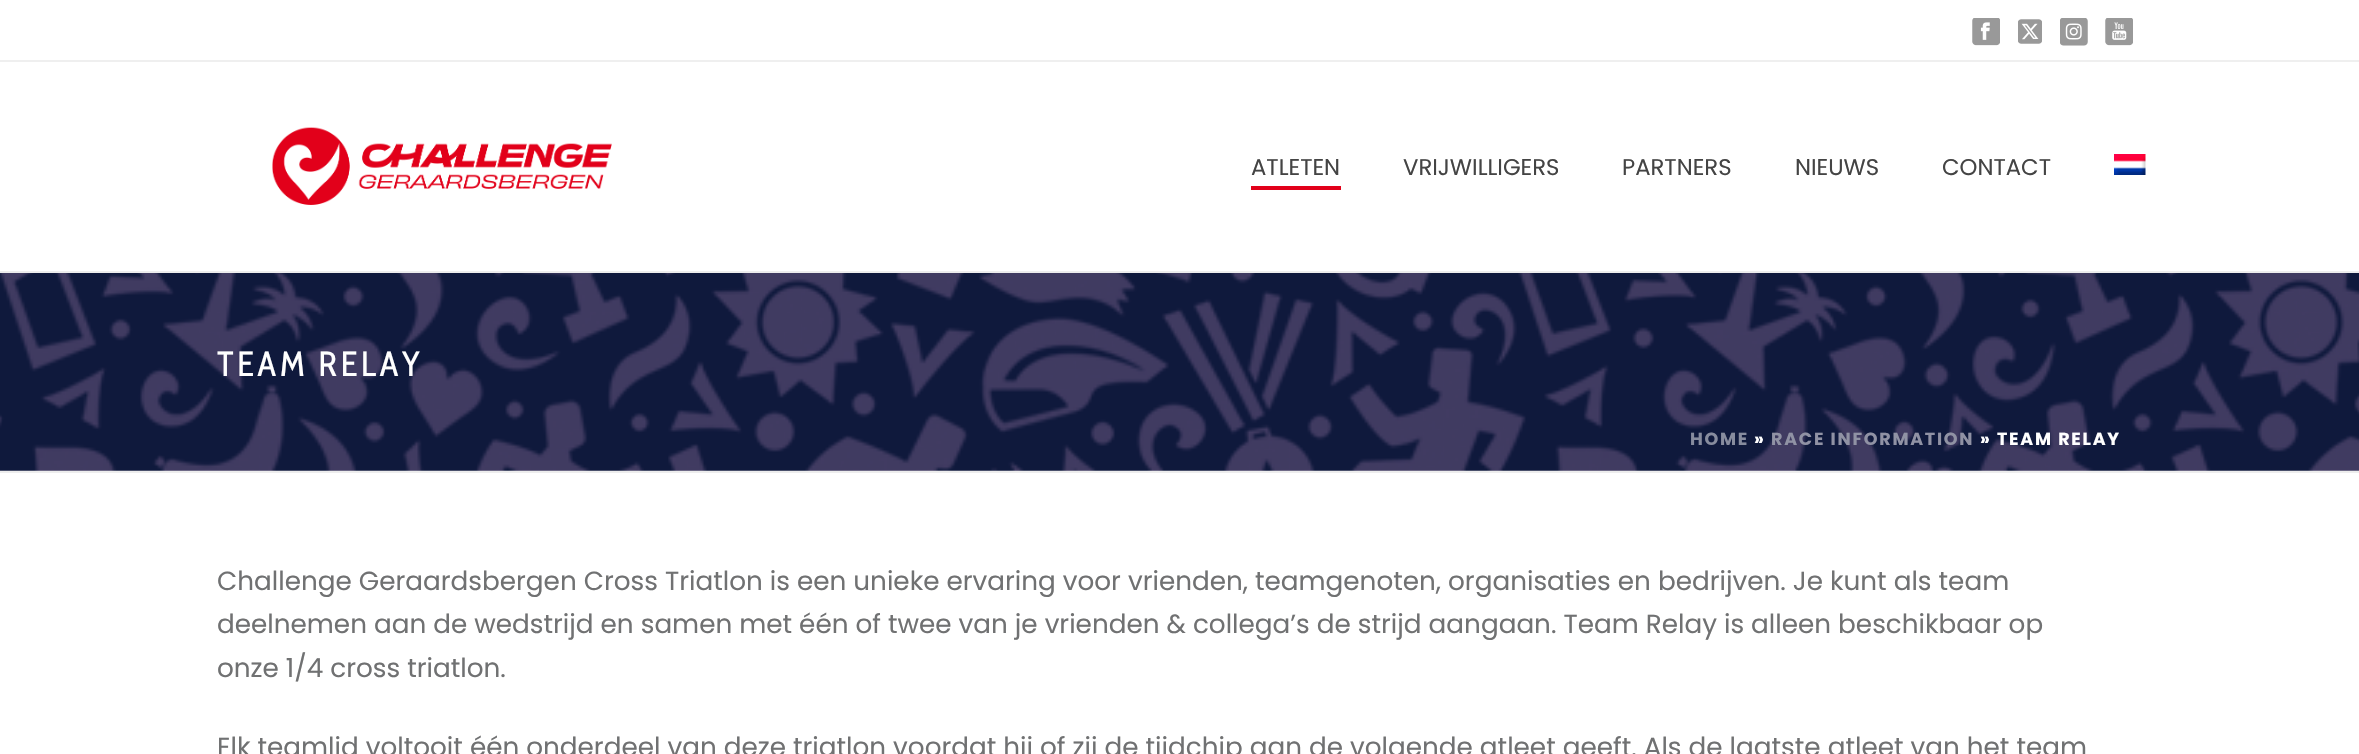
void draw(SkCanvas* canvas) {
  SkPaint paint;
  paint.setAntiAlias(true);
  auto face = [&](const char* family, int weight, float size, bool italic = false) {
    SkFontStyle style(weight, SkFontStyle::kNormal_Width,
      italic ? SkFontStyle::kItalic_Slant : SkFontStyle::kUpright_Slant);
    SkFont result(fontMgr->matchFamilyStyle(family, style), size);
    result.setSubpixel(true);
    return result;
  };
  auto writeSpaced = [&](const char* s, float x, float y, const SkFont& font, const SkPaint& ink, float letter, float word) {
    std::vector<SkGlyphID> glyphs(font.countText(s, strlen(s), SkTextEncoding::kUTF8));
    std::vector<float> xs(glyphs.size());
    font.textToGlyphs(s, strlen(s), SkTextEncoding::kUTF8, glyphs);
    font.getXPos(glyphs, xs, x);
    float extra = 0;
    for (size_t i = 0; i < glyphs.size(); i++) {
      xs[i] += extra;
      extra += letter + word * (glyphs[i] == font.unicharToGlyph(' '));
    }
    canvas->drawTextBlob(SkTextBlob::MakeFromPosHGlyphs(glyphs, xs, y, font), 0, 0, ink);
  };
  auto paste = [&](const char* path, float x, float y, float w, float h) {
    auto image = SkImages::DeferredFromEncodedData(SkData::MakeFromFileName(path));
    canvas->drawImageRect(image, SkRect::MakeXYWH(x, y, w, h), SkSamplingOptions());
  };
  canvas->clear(0xffffffff);
  paste("img/1.png", 0, 273, 2359, 198);
  paint.setColor(0xffededed);
  canvas->drawRect(SkRect::MakeXYWH(0, 471, 2359, 2), paint);
  paint.setColor(0xffefefef);
  canvas->drawRect(SkRect::MakeXYWH(0, 60, 2359, 2), paint);
  paste("img/2.png", 1972, 18, 28, 28);
  paste("img/3.png", 2018, 19, 24, 25);
  paste("img/4.png", 2060, 18, 28, 28);
  paste("img/5.png", 2105, 18, 28, 28);
  paint.setColor(0xffededed);
  canvas->drawRect(SkRect::MakeXYWH(0, 271, 2359, 2), paint);
  paste("img/6.png", 272, 127, 340, 78);
  paint.setColor(0xffe2001a);
  canvas->drawRect(SkRect::MakeXYWH(1251, 186, 90, 4), paint);
  paste("img/7.png", 2114, 154, 32, 21);
  auto f0 = face("Poppins", 400, 22.75f);
  paint.setColor(0xff444444);
  {
    const struct { const char* s; float x, y; } items[] = {
      {"ATLETEN", 1251, 175},
      {"VRIJWILLIGERS", 1403, 175},
      {"PARTNERS", 1622, 175},
      {"NIEUWS", 1795, 175},
      {"CONTACT", 1942, 175},
    };
    for (auto [s, x, y] : items) {
      canvas->drawString(s, x, y, f0, paint);
    }
  }
  auto f1 = face("Cabin Condensed", 400, 35);
  paint.setColor(0xffffffff);
  writeSpaced("TEAM RELAY", 217, 376, f1, paint, 3.5f, 0);
  auto f2 = face("Poppins", 700, 17.5f);
  paint.setColor(0xff878c9e);
  writeSpaced("HOME", 1690, 445, f2, paint, 1.75f, 0);
  paint.setColor(0xffffffff);
  writeSpaced("»", 1754, 445, f2, paint, 1.75f, 0);
  paint.setColor(0xff9092a4);
  writeSpaced("RACE INFORMATION", 1771, 445, f2, paint, 1.75f, 0);
  paint.setColor(0xffffffff);
  writeSpaced("» TEAM RELAY", 1980, 445, f2, paint, 1.75f, 0);
  auto f3 = face("Poppins", 400, 26.25f);
  paint.setColor(0xff707172);
  {
    const struct { const char* s; float x, y; } items[] = {
      {"Challenge Geraardsbergen Cross Triatlon is een unieke ervaring voor vrienden, teamgenoten, organisaties en bedrijven. Je kunt als team", 217, 590},
      {"deelnemen aan de wedstrijd en samen met één of twee van je vrienden & collega’s de strijd aangaan. Team Relay is alleen beschikbaar op", 217, 633},
      {"onze 1/4 cross triatlon.", 217, 677},
      {"Elk teamlid voltooit één onderdeel van deze triatlon voordat hij of zij de tijdchip aan de volgende atleet geeft. Als de laatste atleet van het team", 217, 756},
    };
    for (auto [s, x, y] : items) {
      canvas->drawString(s, x, y, f3, paint);
    }
  }
}
